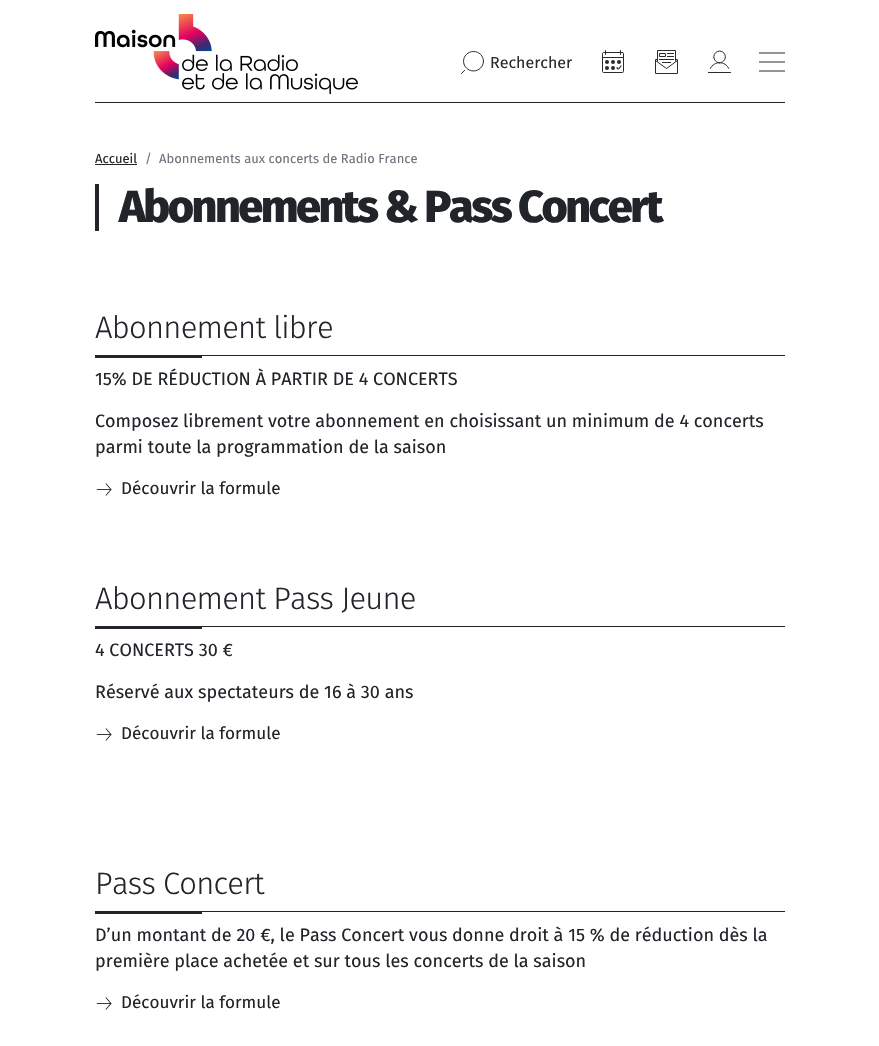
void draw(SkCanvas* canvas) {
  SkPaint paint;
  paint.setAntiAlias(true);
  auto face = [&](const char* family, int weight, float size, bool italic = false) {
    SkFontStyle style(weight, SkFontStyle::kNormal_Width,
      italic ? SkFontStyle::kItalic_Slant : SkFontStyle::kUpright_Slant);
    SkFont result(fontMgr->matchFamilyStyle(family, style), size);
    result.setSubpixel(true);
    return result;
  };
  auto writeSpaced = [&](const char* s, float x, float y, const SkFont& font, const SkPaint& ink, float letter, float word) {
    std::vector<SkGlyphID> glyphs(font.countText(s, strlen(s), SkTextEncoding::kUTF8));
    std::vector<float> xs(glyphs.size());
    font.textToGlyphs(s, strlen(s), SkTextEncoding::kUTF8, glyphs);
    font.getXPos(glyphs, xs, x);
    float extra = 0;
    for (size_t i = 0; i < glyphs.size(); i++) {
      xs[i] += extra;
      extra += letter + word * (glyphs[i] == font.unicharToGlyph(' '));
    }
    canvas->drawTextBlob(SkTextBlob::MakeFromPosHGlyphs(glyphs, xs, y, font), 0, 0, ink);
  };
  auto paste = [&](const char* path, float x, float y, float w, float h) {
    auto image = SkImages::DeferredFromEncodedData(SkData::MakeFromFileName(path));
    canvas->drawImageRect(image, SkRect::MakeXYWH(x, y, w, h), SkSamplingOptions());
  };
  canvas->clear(0xffffffff);
  paste("img/1.png", 95, 14, 263, 80);
  paste("img/2.png", 461, 51, 23, 23);
  paste("img/3.png", 602, 50, 22, 23);
  paste("img/4.png", 655, 50, 23, 24);
  paste("img/5.png", 708, 50, 23, 23);
  paste("img/6.png", 759, 52, 26, 20);
  {
    const struct { float x, y, w, h; SkColor color; } items[] = {
      {95, 102, 690, 1, 0xff212529},
      {95, 164, 42, 1, 0xff212529},
      {95, 184, 4, 47, 0xff212529},
      {202, 355, 583, 1, 0xff212529},
      {95, 355, 107, 3, 0xff212529},
    };
    for (auto [x, y, w, h, color] : items) {
      paint.setColor(color);
      canvas->drawRect(SkRect::MakeXYWH(x, y, w, h), paint);
    }
  }
  paste("img/7.png", 96, 483, 16, 13);
  canvas->drawRect(SkRect::MakeXYWH(202, 626, 583, 1), paint);
  canvas->drawRect(SkRect::MakeXYWH(95, 626, 107, 3), paint);
  paste("img/7.png", 96, 728, 16, 13);
  canvas->drawRect(SkRect::MakeXYWH(202, 911, 583, 1), paint);
  canvas->drawRect(SkRect::MakeXYWH(95, 911, 107, 3), paint);
  paste("img/7.png", 96, 997, 16, 13);
  auto f0 = face("Fira Sans", 400, 16);
  paint.setColor(0xff2b2b2b);
  canvas->drawString("Rechercher", 490, 68, f0, paint);
  auto f1 = face("Fira Sans", 400, 13);
  paint.setColor(0xff212529);
  canvas->drawString("Accueil", 95, 163, f1, paint);
  paint.setColor(0xff6c757d);
  canvas->drawString("/", 145, 163, f1, paint);
  canvas->drawString("Abonnements aux concerts de Radio France", 159, 163, f1, paint);
  auto f2 = face("Fira Sans", 800, 45);
  paint.setColor(0xff212529);
  writeSpaced("Abonnements & Pass Concert", 119, 222, f2, paint, -2.5f, 0);
  auto f3 = face("Fira Sans", 300, 31);
  writeSpaced("Abonnement libre", 95, 338, f3, paint, -0.75f, 0);
  auto f4 = face("Fira Sans", 400, 18);
  {
    const struct { const char* s; float x, y; } items[] = {
      {"15% DE RÉDUCTION À PARTIR DE 4 CONCERTS", 95, 385},
      {"Composez librement votre abonnement en choisissant un minimum de 4 concerts", 95, 427},
      {"parmi toute la programmation de la saison", 95, 453},
    };
    for (auto [s, x, y] : items) {
      canvas->drawString(s, x, y, f4, paint);
    }
  }
  auto f5 = face("Fira Sans", 400, 17.1f);
  canvas->drawString("Découvrir la formule", 121, 494, f5, paint);
  writeSpaced("Abonnement Pass Jeune", 95, 609, f3, paint, -0.75f, 0);
  canvas->drawString("4 CONCERTS 30 €", 95, 656, f4, paint);
  canvas->drawString("Réservé aux spectateurs de 16 à 30 ans", 95, 698, f4, paint);
  canvas->drawString("Découvrir la formule", 121, 739, f5, paint);
  writeSpaced("Pass Concert", 95, 894, f3, paint, -0.75f, 0);
  canvas->drawString("D’un montant de 20 €, le Pass Concert vous donne droit à 15 % de réduction dès la", 95, 941, f4, paint);
  canvas->drawString("première place achetée et sur tous les concerts de la saison", 95, 967, f4, paint);
  canvas->drawString("Découvrir la formule", 121, 1008, f5, paint);
}
